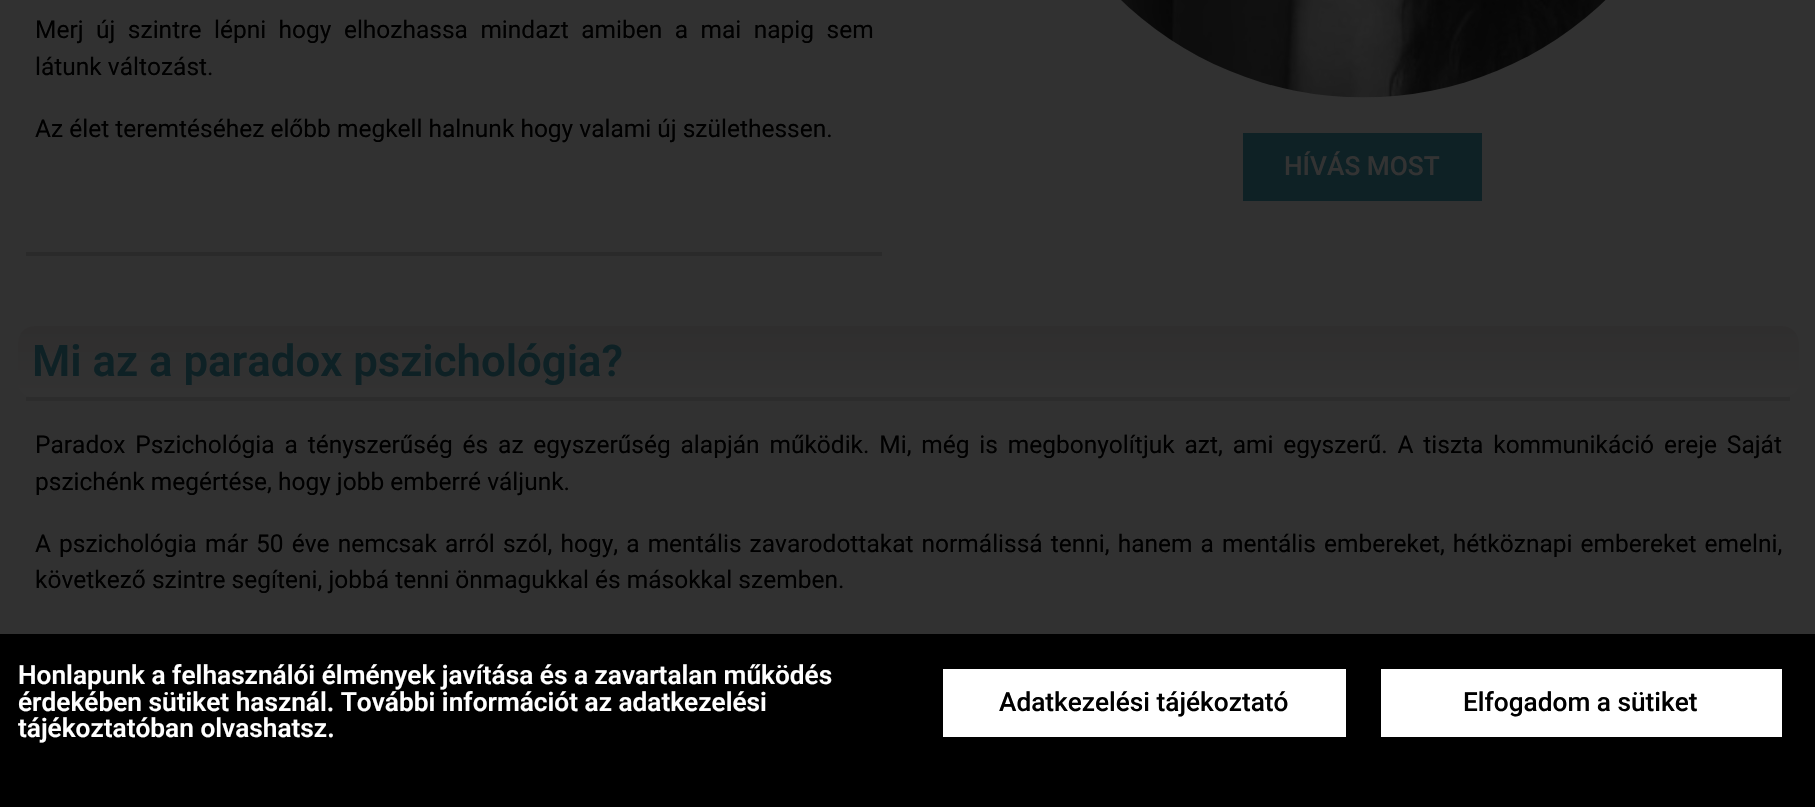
void draw(SkCanvas* canvas) {
  SkPaint paint;
  paint.setAntiAlias(true);
  auto face = [&](const char* family, int weight, float size, bool italic = false) {
    SkFontStyle style(weight, SkFontStyle::kNormal_Width,
      italic ? SkFontStyle::kItalic_Slant : SkFontStyle::kUpright_Slant);
    SkFont result(fontMgr->matchFamilyStyle(family, style), size);
    result.setSubpixel(true);
    return result;
  };
  auto writeSpaced = [&](const char* s, float x, float y, const SkFont& font, const SkPaint& ink, float letter, float word) {
    std::vector<SkGlyphID> glyphs(font.countText(s, strlen(s), SkTextEncoding::kUTF8));
    std::vector<float> xs(glyphs.size());
    font.textToGlyphs(s, strlen(s), SkTextEncoding::kUTF8, glyphs);
    font.getXPos(glyphs, xs, x);
    float extra = 0;
    for (size_t i = 0; i < glyphs.size(); i++) {
      xs[i] += extra;
      extra += letter + word * (glyphs[i] == font.unicharToGlyph(' '));
    }
    canvas->drawTextBlob(SkTextBlob::MakeFromPosHGlyphs(glyphs, xs, y, font), 0, 0, ink);
  };
  auto paste = [&](const char* path, float x, float y, float w, float h) {
    auto image = SkImages::DeferredFromEncodedData(SkData::MakeFromFileName(path));
    canvas->drawImageRect(image, SkRect::MakeXYWH(x, y, w, h), SkSamplingOptions());
  };
  auto shape = [&](const char* data, bool evenOdd = false) {
    SkPath result = *SkParsePath::FromSVGString(data);
    if (evenOdd) result.setFillType(SkPathFillType::kEvenOdd);
    return result;
  };
  canvas->clear(0xff313131);
  paint.setColor(0xff2a2a2a);
  canvas->drawRect(SkRect::MakeXYWH(26, 252, 856, 4), paint);
  paste("img/1.png", 1121, 0, 485, 98);
  paint.setColor(0xff0e2125);
  canvas->drawRect(SkRect::MakeXYWH(1243, 133, 239, 68), paint);
  {
    const SkColor colors[] = {0xff2f2e2e, 0xff323232};
    const float stops[] = {0, 1};
    const SkPoint ends[] = {{908, 325}, {908, 397}};
    paint.setShader(SkGradientShader::MakeLinear(ends, colors, stops, 2, SkTileMode::kClamp));
    paint.setAlpha(255);
  }
  canvas->drawPath(shape("M35 326H1782C1791 326 1799 333 1799 343V383C1799 391 1791 397 1782 397H35C25 397 18 391 18 383V343C18 333 25 326 35 326Z"), paint);
  paint.setShader(nullptr);
  {
    const struct { float x, y, w, h; SkColor color; } items[] = {
      {26, 397, 1764, 4, 0xff2c2c2c},
      {0, 634, 1815, 173, 0xff000000},
      {943, 669, 403, 68, 0xffffffff},
      {1381, 669, 401, 68, 0xffffffff},
    };
    for (auto [x, y, w, h, color] : items) {
      paint.setColor(color);
      canvas->drawRect(SkRect::MakeXYWH(x, y, w, h), paint);
    }
  }
  auto f0 = face("Roboto", 400, 24.5f);
  paint.setColor(0xff000000);
  writeSpaced("Merj új szintre lépni hogy elhozhassa mindazt amiben a mai napig sem", 35, 38, f0, paint, 0, 6.4f);
  canvas->drawString("látunk változást.", 35, 75, f0, paint);
  canvas->drawString("Az élet teremtéséhez előbb megkell halnunk hogy valami új születhessen.", 35, 137, f0, paint);
  auto f1 = face("Roboto", 500, 26.25f);
  paint.setColor(0xff333333);
  canvas->drawString("HÍVÁS MOST", 1284, 175, f1, paint);
  auto f2 = face("Roboto", 600, 43.75f);
  paint.setColor(0xff0e2125);
  canvas->drawString("Mi az a paradox pszichológia?", 32, 376, f2, paint);
  paint.setColor(0xff000000);
  writeSpaced("Paradox Pszichológia a tényszerűség és az egyszerűség alapján működik. Mi, még is megbonyolítjuk azt, ami egyszerű. A tiszta kommunikáció ereje Saját", 35, 453, f0, paint, 0, 3.75f);
  canvas->drawString("pszichénk megértése, hogy jobb emberré váljunk.", 35, 490, f0, paint);
  writeSpaced("A pszichológia már 50 éve nemcsak arról szól, hogy, a mentális zavarodottakat normálissá tenni, hanem a mentális embereket, hétköznapi embereket emelni,", 35, 552, f0, paint, 0, 2);
  canvas->drawString("következő szintre segíteni, jobbá tenni önmagukkal és másokkal szemben.", 35, 588, f0, paint);
  auto f3 = face("Roboto", 600, 26.25f);
  paint.setColor(0xffffffff);
  {
    const struct { const char* s; float x, y; } items[] = {
      {"Honlapunk a felhasználói élmények javítása és a zavartalan működés", 18, 684},
      {"érdekében sütiket használ. További információt az adatkezelési", 18, 711},
      {"tájékoztatóban olvashatsz.", 18, 737},
    };
    for (auto [s, x, y] : items) {
      canvas->drawString(s, x, y, f3, paint);
    }
  }
  paint.setColor(0xff000000);
  canvas->drawString("Adatkezelési tájékoztató", 999, 711, f1, paint);
  canvas->drawString("Elfogadom a sütiket", 1463, 711, f1, paint);
}
